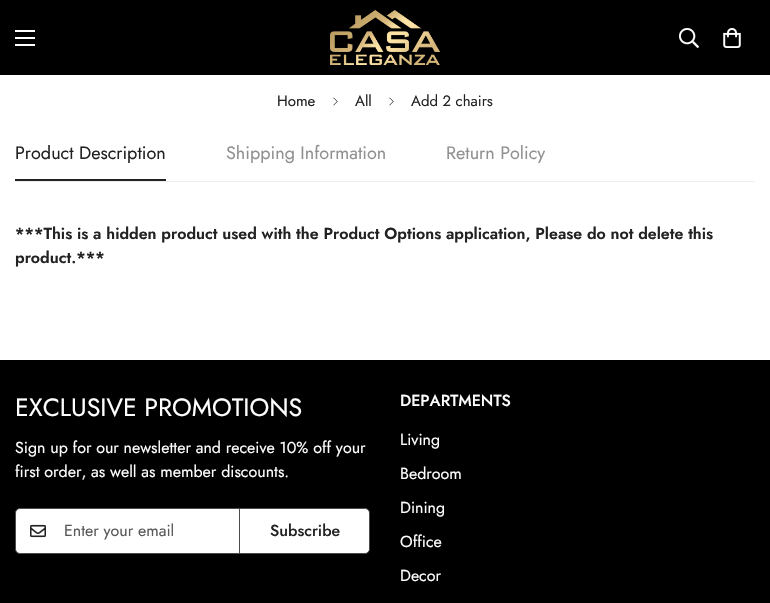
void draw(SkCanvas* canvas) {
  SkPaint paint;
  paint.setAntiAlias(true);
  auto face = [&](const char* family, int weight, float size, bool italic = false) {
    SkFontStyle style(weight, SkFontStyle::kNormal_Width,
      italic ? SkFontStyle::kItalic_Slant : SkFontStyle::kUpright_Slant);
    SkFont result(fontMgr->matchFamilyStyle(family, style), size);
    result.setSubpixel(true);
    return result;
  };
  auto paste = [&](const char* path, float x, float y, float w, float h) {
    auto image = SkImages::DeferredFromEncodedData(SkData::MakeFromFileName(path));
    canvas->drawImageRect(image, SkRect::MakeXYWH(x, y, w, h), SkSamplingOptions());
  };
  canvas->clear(0xffffffff);
  {
    const struct { float x, y, w, h; SkColor color; } items[] = {
      {0, 0, 770, 75, 0xff000000},
      {15, 37, 20, 2, 0xffffffff},
      {15, 30, 20, 2, 0xffffffff},
      {15, 44, 20, 2, 0xffffffff},
    };
    for (auto [x, y, w, h, color] : items) {
      paint.setColor(color);
      canvas->drawRect(SkRect::MakeXYWH(x, y, w, h), paint);
    }
  }
  paste("img/1.png", 330, 10, 110, 55);
  paste("img/2.png", 679, 28, 20, 20);
  paste("img/3.png", 723, 28, 18, 20);
  paste("img/4.png", 333, 97, 5, 9);
  paste("img/4.png", 389, 97, 5, 9);
  {
    const struct { float x, y, w, h; SkColor color; } items[] = {
      {15, 181, 740, 1, 0xffeeeeee},
      {15, 179, 151, 2, 0xff222222},
      {0, 360, 770, 243, 0xff000000},
    };
    for (auto [x, y, w, h, color] : items) {
      paint.setColor(color);
      canvas->drawRect(SkRect::MakeXYWH(x, y, w, h), paint);
    }
  }
  paint.setColor(0xffffffff);
  canvas->drawRoundRect(SkRect::MakeXYWH(15.5f, 508.5f, 354, 45), 4.5f, 4.5f, paint);
  paint.setStroke(true);
  paint.setStrokeWidth(1);
  paint.setColor(0xff4b4b4b);
  canvas->drawRoundRect(SkRect::MakeXYWH(15.5f, 508.5f, 354, 45), 4.5f, 4.5f, paint);
  paste("img/5.png", 30, 524, 16, 14);
  paint.setStroke(false);
  canvas->drawRect(SkRect::MakeXYWH(239, 508, 1, 46), paint);
  auto f0 = face("Jost", 400, 15);
  paint.setColor(0xff222222);
  {
    const struct { const char* s; float x, y; } items[] = {
      {"Home", 277, 106},
      {"All", 355, 106},
      {"Add 2 chairs", 411, 106},
    };
    for (auto [s, x, y] : items) {
      canvas->drawString(s, x, y, f0, paint);
    }
  }
  auto f1 = face("Jost", 400, 18);
  canvas->drawString("Product Description", 15, 159, f1, paint);
  paint.setColor(0xff919191);
  canvas->drawString("Shipping Information", 226, 159, f1, paint);
  canvas->drawString("Return Policy", 446, 159, f1, paint);
  auto f2 = face("Jost", 600, 16);
  paint.setColor(0xff222222);
  canvas->drawString("***This is a hidden product used with the Product Options application, Please do not delete this", 15, 239, f2, paint);
  canvas->drawString("product.***", 15, 263, f2, paint);
  auto f3 = face("Jost", 400, 25);
  paint.setColor(0xffffffff);
  canvas->drawString("EXCLUSIVE PROMOTIONS", 15, 416, f3, paint);
  auto f4 = face("Jost", 400, 16);
  canvas->drawString("Sign up for our newsletter and receive 10% off your", 15, 453, f4, paint);
  canvas->drawString("first order, as well as member discounts.", 15, 477, f4, paint);
  paint.setColor(0xff595959);
  canvas->drawString("Enter your email", 64, 536, f4, paint);
  auto f5 = face("Jost", 500, 16);
  paint.setColor(0xff222222);
  canvas->drawString("Subscribe", 270, 536, f5, paint);
  paint.setColor(0xffffffff);
  canvas->drawString("DEPARTMENTS", 400, 406, f5, paint);
  {
    const struct { const char* s; float x, y; } items[] = {
      {"Living", 400, 445},
      {"Bedroom", 400, 479},
      {"Dining", 400, 513},
      {"Office", 400, 547},
      {"Decor", 400, 581},
    };
    for (auto [s, x, y] : items) {
      canvas->drawString(s, x, y, f4, paint);
    }
  }
}
